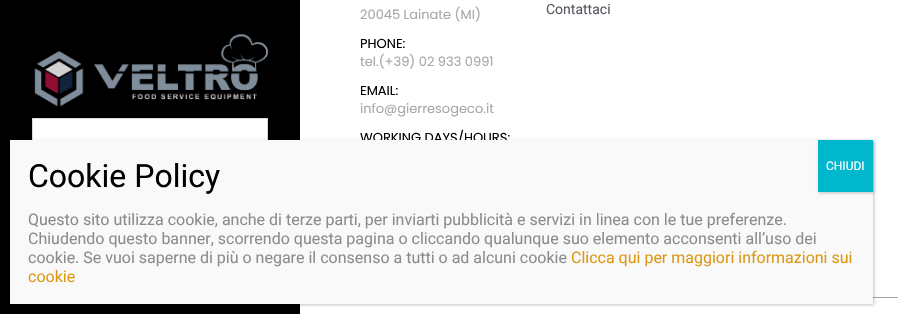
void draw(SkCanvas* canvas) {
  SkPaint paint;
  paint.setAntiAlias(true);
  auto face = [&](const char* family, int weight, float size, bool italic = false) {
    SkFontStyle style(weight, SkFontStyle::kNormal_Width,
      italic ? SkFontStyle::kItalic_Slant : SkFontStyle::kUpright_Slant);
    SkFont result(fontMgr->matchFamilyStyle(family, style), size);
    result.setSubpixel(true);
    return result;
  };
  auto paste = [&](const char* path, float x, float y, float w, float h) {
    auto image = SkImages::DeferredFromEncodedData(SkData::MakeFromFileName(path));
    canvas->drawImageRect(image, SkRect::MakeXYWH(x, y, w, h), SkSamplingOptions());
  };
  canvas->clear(0xffffffff);
  paint.setColor(0xff000000);
  canvas->drawRect(SkRect::MakeXYWH(0, 0, 300, 314), paint);
  paste("img/1.png", 34, 34, 234, 73);
  paint.setColor(0xffffffff);
  canvas->drawRect(SkRect::MakeXYWH(33, 119, 234, 21), paint);
  paint.setStroke(true);
  paint.setStrokeWidth(1);
  paint.setColor(0xffd8d8d8);
  canvas->drawRect(SkRect::MakeXYWH(32.5f, 118.5f, 235, 43), paint);
  paint.setStroke(false);
  paint.setColor(0xffa5a5a5);
  canvas->drawRect(SkRect::MakeXYWH(873, 297, 25, 1), paint);
  paint.setColor(0x3b020202);
  paint.setMaskFilter(SkMaskFilter::MakeBlur(kNormal_SkBlurStyle, 1.5f));
  canvas->drawRect(SkRect::MakeXYWH(11, 141, 863, 164), paint);
  paint.setMaskFilter(nullptr);
  auto f0 = face("Poppins", 400, 13);
  paint.setColor(0xffa8a8a8);
  canvas->drawString("20045 Lainate (MI)", 360, 19, f0, paint);
  paint.setColor(0xff000000);
  canvas->drawString("PHONE:", 360, 48, f0, paint);
  paint.setColor(0xffa8a8a8);
  canvas->drawString("tel.(+39) 02 933 0991", 360, 66, f0, paint);
  paint.setColor(0xff000000);
  canvas->drawString("EMAIL:", 360, 95, f0, paint);
  paint.setColor(0xffa8a8a8);
  canvas->drawString("info@gierresogeco.it", 360, 113, f0, paint);
  paint.setColor(0xff000000);
  canvas->drawString("WORKING DAYS/HOURS:", 360, 142, f0, paint);
  auto f1 = face("Roboto", 400, 14);
  paint.setColor(0xff54595f);
  canvas->drawString("Contattaci", 546, 14, f1, paint);
  paint.setColor(0xfff9f9f9);
  canvas->drawRect(SkRect::MakeXYWH(10, 140, 863, 164), paint);
  auto f2 = face("Roboto", 400, 32);
  paint.setColor(0xff000000);
  canvas->drawString("Cookie Policy", 28, 187, f2, paint);
  paint.setColor(0x3b020202);
  paint.setMaskFilter(SkMaskFilter::MakeBlur(kNormal_SkBlurStyle, 1.5f));
  canvas->drawRect(SkRect::MakeXYWH(819, 141, 55, 52), paint);
  paint.setMaskFilter(nullptr);
  paint.setColor(0xff00b7cd);
  canvas->drawRect(SkRect::MakeXYWH(818, 140, 55, 52), paint);
  auto f3 = face("Roboto", 400, 12);
  paint.setColor(0xffffffff);
  canvas->drawString("CHIUDI", 826, 170, f3, paint);
  auto f4 = face("Roboto", 400, 16);
  paint.setColor(0xff8c8c8c);
  {
    const struct { const char* s; float x, y; } items[] = {
      {"Questo sito utilizza cookie, anche di terze parti, per inviarti pubblicità e servizi in linea con le tue preferenze.", 28, 225},
      {"Chiudendo questo banner, scorrendo questa pagina o cliccando qualunque suo elemento acconsenti all’uso dei", 28, 244},
      {"cookie. Se vuoi saperne di più o negare il consenso a tutti o ad alcuni cookie", 28, 263},
    };
    for (auto [s, x, y] : items) {
      canvas->drawString(s, x, y, f4, paint);
    }
  }
  paint.setColor(0xffdc9814);
  canvas->drawString("Clicca qui per maggiori informazioni sui", 571, 263, f4, paint);
  canvas->drawString("cookie", 28, 282, f4, paint);
}
